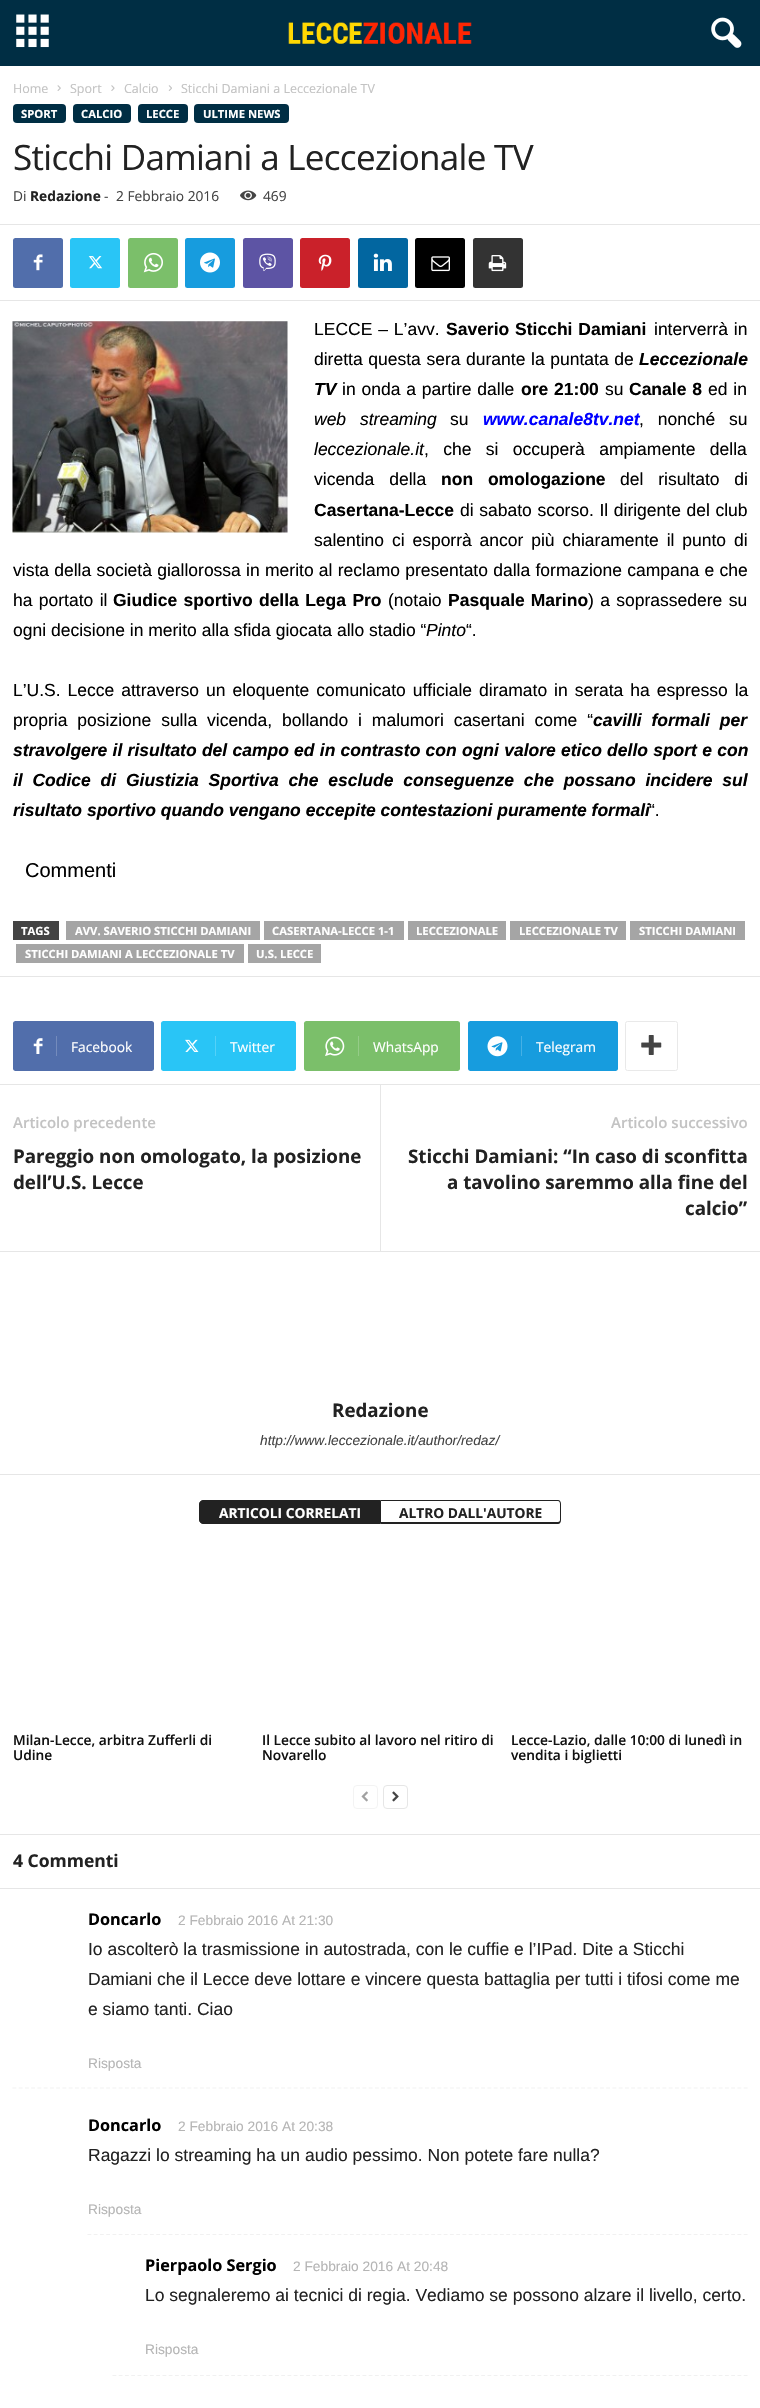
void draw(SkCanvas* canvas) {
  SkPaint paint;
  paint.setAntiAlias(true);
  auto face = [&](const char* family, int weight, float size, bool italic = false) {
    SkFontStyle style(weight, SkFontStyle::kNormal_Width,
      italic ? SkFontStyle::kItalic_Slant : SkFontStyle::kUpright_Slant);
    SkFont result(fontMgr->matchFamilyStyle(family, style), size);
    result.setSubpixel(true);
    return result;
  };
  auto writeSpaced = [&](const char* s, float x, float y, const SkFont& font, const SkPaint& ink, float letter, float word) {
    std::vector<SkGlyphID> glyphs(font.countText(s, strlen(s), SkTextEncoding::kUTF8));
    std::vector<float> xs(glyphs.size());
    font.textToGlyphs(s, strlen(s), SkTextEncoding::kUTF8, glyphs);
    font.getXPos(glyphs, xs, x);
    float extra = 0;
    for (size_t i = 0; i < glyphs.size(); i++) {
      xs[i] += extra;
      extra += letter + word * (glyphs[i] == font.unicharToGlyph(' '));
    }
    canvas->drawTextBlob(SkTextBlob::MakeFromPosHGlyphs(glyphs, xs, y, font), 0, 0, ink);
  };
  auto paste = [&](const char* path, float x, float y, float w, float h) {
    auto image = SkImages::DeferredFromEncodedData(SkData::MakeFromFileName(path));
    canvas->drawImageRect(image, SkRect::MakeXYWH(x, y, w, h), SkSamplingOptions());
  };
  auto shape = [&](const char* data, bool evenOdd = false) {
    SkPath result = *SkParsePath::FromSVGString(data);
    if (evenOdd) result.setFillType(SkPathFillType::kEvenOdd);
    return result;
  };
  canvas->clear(0xffffffff);
  paint.setColor(0xff002e44);
  canvas->drawRect(SkRect::MakeXYWH(0, 0, 760, 66), paint);
  paste("img/1.png", 16, 14, 33, 34);
  paste("img/2.png", 288, 22, 184, 22);
  paste("img/3.png", 711, 17, 31, 31);
  paste("img/4.png", 57, 85, 4, 6);
  paste("img/5.png", 111, 85, 4, 6);
  paste("img/6.png", 168, 85, 4, 6);
  canvas->drawRoundRect(SkRect::MakeXYWH(13, 104, 53, 19), 4, 4, paint);
  canvas->drawRoundRect(SkRect::MakeXYWH(73, 104, 58, 19), 4, 4, paint);
  canvas->drawRoundRect(SkRect::MakeXYWH(138, 104, 50, 19), 4, 4, paint);
  canvas->drawRoundRect(SkRect::MakeXYWH(194, 104, 95, 19), 4, 4, paint);
  paste("img/7.png", 240, 190, 17, 11);
  paint.setColor(0xffe6e6e6);
  canvas->drawRect(SkRect::MakeXYWH(0, 224, 760, 1), paint);
  paint.setColor(0xff516eab);
  canvas->drawRoundRect(SkRect::MakeXYWH(13, 238, 50, 50), 2.5f, 2.5f, paint);
  paste("img/8.png", 33, 254, 10, 17);
  paint.setColor(0xff29c5f6);
  canvas->drawRoundRect(SkRect::MakeXYWH(70, 238, 50, 50), 2.5f, 2.5f, paint);
  paste("img/9.png", 88, 256, 15, 13);
  paint.setColor(0xff7bbf6a);
  canvas->drawRoundRect(SkRect::MakeXYWH(128, 238, 50, 50), 2.5f, 2.5f, paint);
  paste("img/10.png", 143, 252, 20, 21);
  paint.setColor(0xff179cde);
  canvas->drawRoundRect(SkRect::MakeXYWH(185, 238, 50, 50), 2.5f, 2.5f, paint);
  paste("img/11.png", 200, 252, 20, 21);
  paint.setColor(0xff5d54a4);
  canvas->drawRoundRect(SkRect::MakeXYWH(243, 238, 50, 50), 2.5f, 2.5f, paint);
  paste("img/12.png", 259, 253, 17, 19);
  paint.setColor(0xffca212a);
  canvas->drawRoundRect(SkRect::MakeXYWH(300, 238, 50, 50), 2.5f, 2.5f, paint);
  paste("img/13.png", 318, 254, 14, 17);
  paint.setColor(0xff0266a0);
  canvas->drawRoundRect(SkRect::MakeXYWH(358, 238, 50, 50), 2.5f, 2.5f, paint);
  paste("img/14.png", 373, 253, 19, 18);
  paint.setColor(0xff000000);
  canvas->drawRoundRect(SkRect::MakeXYWH(415, 238, 50, 50), 2.5f, 2.5f, paint);
  paste("img/15.png", 431, 256, 19, 16);
  paint.setColor(0xff333333);
  canvas->drawRoundRect(SkRect::MakeXYWH(473, 238, 50, 50), 2.5f, 2.5f, paint);
  paste("img/16.png", 488, 255, 19, 17);
  paint.setColor(0xffe6e6e6);
  canvas->drawRect(SkRect::MakeXYWH(0, 300, 760, 1), paint);
  paste("img/17.png", 12, 321, 276, 212);
  {
    const struct { float x, y, w, h; SkColor color; } items[] = {
      {13, 921, 46, 19, 0xff444444},
      {66, 921, 194, 19, 0xffa5a5a5},
      {264, 921, 140, 19, 0xffa5a5a5},
      {408, 921, 98, 19, 0xffa5a5a5},
      {510, 921, 116, 19, 0xffa5a5a5},
      {630, 921, 115, 19, 0xffa5a5a5},
      {16, 944, 228, 19, 0xffa5a5a5},
      {248, 944, 73, 19, 0xffa5a5a5},
      {0, 976, 760, 1, 0xffe6e6e6},
    };
    for (auto [x, y, w, h, color] : items) {
      paint.setColor(color);
      canvas->drawRect(SkRect::MakeXYWH(x, y, w, h), paint);
    }
  }
  paint.setColor(0xff516eab);
  canvas->drawPath(shape("M56 1021H151.5C153 1021 154 1022 154 1023.5V1068.5C154 1070 153 1071 151.5 1071H56Z"), paint);
  canvas->drawPath(shape("M15.5 1021H64V1071H15.5C14 1071 13 1070 13 1068.5V1023.5C13 1022 14 1021 15.5 1021Z"), paint);
  paste("img/18.png", 33, 1038, 10, 16);
  paint.setColor(0xff748bbc);
  canvas->drawRect(SkRect::MakeXYWH(56, 1036, 1, 20), paint);
  paint.setColor(0xff29c5f6);
  canvas->drawPath(shape("M215 1021H293.5C295 1021 296 1022 296 1023.5V1068.5C296 1070 295 1071 293.5 1071H215Z"), paint);
  canvas->drawPath(shape("M163.5 1021H223V1071H163.5C162 1071 161 1070 161 1068.5V1023.5C161 1022 162 1021 163.5 1021Z"), paint);
  paste("img/19.png", 185, 1039, 14, 13);
  paint.setColor(0xff54d1f8);
  canvas->drawRect(SkRect::MakeXYWH(215, 1036, 1, 20), paint);
  paint.setColor(0xff7bbf6a);
  canvas->drawPath(shape("M358 1021H457.5C459 1021 460 1022 460 1023.5V1068.5C460 1070 459 1071 457.5 1071H358Z"), paint);
  canvas->drawPath(shape("M306.5 1021H365V1071H306.5C305 1071 304 1070 304 1068.5V1023.5C304 1022 305 1021 306.5 1021Z"), paint);
  paste("img/20.png", 325, 1036, 20, 20);
  paint.setColor(0xff95cc88);
  canvas->drawRect(SkRect::MakeXYWH(358, 1036, 1, 20), paint);
  paint.setColor(0xff179cde);
  canvas->drawPath(shape("M521 1021H615.5C617 1021 618 1022 618 1023.5V1068.5C618 1070 617 1071 615.5 1071H521Z"), paint);
  canvas->drawPath(shape("M470.5 1021H529V1071H470.5C469 1071 468 1070 468 1068.5V1023.5C468 1022 469 1021 470.5 1021Z"), paint);
  paste("img/21.png", 487, 1036, 21, 21);
  paint.setColor(0xff45b0e5);
  canvas->drawRect(SkRect::MakeXYWH(521, 1036, 1, 20), paint);
  paint.setStroke(true);
  paint.setStrokeWidth(1);
  paint.setColor(0xffe9e9e9);
  canvas->drawRoundRect(SkRect::MakeXYWH(625.5f, 1021.5f, 52, 49), 2, 2, paint);
  paste("img/22.png", 641, 1035, 21, 20);
  paint.setStroke(false);
  {
    const struct { float x, y, w, h; SkColor color; } items[] = {
      {0, 1084, 760, 1, 0xffe6e6e6},
      {380, 1085, 1, 166, 0xffe6e6e6},
      {0, 1251, 760, 1, 0xffe6e6e6},
      {0, 1474, 760, 1, 0xffe6e6e6},
    };
    for (auto [x, y, w, h, color] : items) {
      paint.setColor(color);
      canvas->drawRect(SkRect::MakeXYWH(x, y, w, h), paint);
    }
  }
  paint.setColor(0xff222222);
  canvas->drawPath(shape("M203 1500.5H380.5V1523.5H203C201 1523.5 199.5 1522 199.5 1520V1504C199.5 1502 201 1500.5 203 1500.5Z"), paint);
  paint.setStroke(true);
  canvas->drawPath(shape("M203 1500.5H380.5V1523.5H203C201 1523.5 199.5 1522 199.5 1520V1504C199.5 1502 201 1500.5 203 1500.5Z"), paint);
  paint.setStroke(false);
  canvas->drawPath(shape("M381 1500H558C560 1500 561 1502 561 1504V1520C561 1522 560 1524 558 1524H381ZM381 1501H558C559 1501 560 1502 560 1504V1520C560 1521 559 1522 558 1522H381Z", true), paint);
  paint.setStroke(true);
  paint.setColor(0xfff3f3f3);
  canvas->drawRoundRect(SkRect::MakeXYWH(353.5f, 1785.5f, 24, 23), 3.5f, 3.5f, paint);
  paste("img/23.png", 361, 1791, 7, 11);
  paint.setColor(0xffe6e6e6);
  canvas->drawRoundRect(SkRect::MakeXYWH(383.5f, 1785.5f, 24, 23), 3.5f, 3.5f, paint);
  paste("img/24.png", 392, 1791, 7, 11);
  paint.setStroke(false);
  canvas->drawRect(SkRect::MakeXYWH(0, 1834, 760, 1), paint);
  canvas->drawRect(SkRect::MakeXYWH(0, 1888, 760, 1), paint);
  paint.setStroke(true);
  paint.setStrokeWidth(1.2f);
  paint.setColor(0xfff1f1f1);
  paint.setPathEffect(SkDashPathEffect::Make({{3.75f, 2.5f}}, 0));
  canvas->drawPath(shape("M12.5 2088H747.5"), paint);
  paint.setPathEffect(nullptr);
  paint.setPathEffect(SkDashPathEffect::Make({{3.75f, 2.5f}}, 0));
  canvas->drawPath(shape("M87.5 2234.5H747.5"), paint);
  paint.setPathEffect(nullptr);
  paint.setPathEffect(SkDashPathEffect::Make({{3.75f, 2.5f}}, 0));
  canvas->drawPath(shape("M112.5 2375.5H747.5"), paint);
  paint.setPathEffect(nullptr);
  auto f0 = face("Open Sans", 400, 12.5f);
  paint.setStroke(false);
  paint.setColor(0xffc3c3c3);
  {
    const struct { const char* s; float x, y; } items[] = {
      {"Home", 13, 93},
      {"Sport", 70, 93},
      {"Calcio", 124, 93},
      {"Sticchi Damiani a Leccezionale TV", 181, 93},
    };
    for (auto [s, x, y] : items) {
      canvas->drawString(s, x, y, f0, paint);
    }
  }
  auto f1 = face("Open Sans", 700, 11.25f);
  paint.setColor(0xffffffff);
  {
    const struct { const char* s; float x, y; } items[] = {
      {"SPORT", 21, 118},
      {"CALCIO", 81, 118},
      {"LECCE", 146, 118},
      {"ULTIME NEWS", 203, 118},
    };
    for (auto [s, x, y] : items) {
      canvas->drawString(s, x, y, f1, paint);
    }
  }
  auto f2 = face("Open Sans", 400, 35);
  paint.setColor(0xff222222);
  writeSpaced("Sticchi Damiani a Leccezionale TV", 13, 170, f2, paint, -0.7f, 0);
  auto f3 = face("Open Sans", 400, 13.75f);
  paint.setColor(0xff444444);
  canvas->drawString("Di", 13, 201, f3, paint);
  auto f4 = face("Open Sans", 700, 13.75f);
  paint.setColor(0xff222222);
  canvas->drawString("Redazione", 30, 201, f4, paint);
  paint.setColor(0xff444444);
  {
    const struct { const char* s; float x, y; } items[] = {
      {"-", 104, 201},
      {"2 Febbraio 2016", 116, 201},
      {"469", 263, 201},
    };
    for (auto [s, x, y] : items) {
      canvas->drawString(s, x, y, f3, paint);
    }
  }
  auto f5 = face("Liberation Sans", 400, 17.5f);
  paint.setColor(0xff000000);
  writeSpaced("LECCE – L’avv.", 314, 335, f5, paint, 0, 1);
  auto f6 = face("Liberation Sans", 700, 17.5f);
  writeSpaced("Saverio Sticchi Damiani", 446, 335, f6, paint, 0, 1);
  writeSpaced("interverrà in", 654, 335, f5, paint, 0, 1);
  writeSpaced("diretta questa sera durante la puntata de", 314, 365, f5, paint, 0, 0.75f);
  auto f7 = face("Liberation Sans", 700, 17.5f, true);
  canvas->drawString("Leccezionale", 639, 365, f7, paint);
  canvas->drawString("TV", 314, 395, f7, paint);
  writeSpaced("in onda a partire dalle", 342, 395, f5, paint, 0, 1);
  writeSpaced("ore 21:00", 521, 395, f6, paint, 0, 1);
  canvas->drawString("su", 605, 395, f5, paint);
  writeSpaced("Canale 8", 629, 395, f6, paint, 0, 1);
  writeSpaced("ed in", 708, 395, f5, paint, 0, 1);
  auto f8 = face("Liberation Sans", 400, 17.5f, true);
  writeSpaced("web streaming", 314, 425, f8, paint, 0, 9);
  canvas->drawString("su", 450, 425, f5, paint);
  paint.setColor(0xff0000ff);
  canvas->drawString("www.canale8tv.net", 483, 425, f7, paint);
  paint.setColor(0xff000000);
  writeSpaced(", nonché su", 639, 425, f5, paint, 0, 9);
  canvas->drawString("leccezionale.it", 314, 455, f8, paint);
  writeSpaced(", che si occuperà ampiamente della", 424, 455, f5, paint, 0, 9.5f);
  writeSpaced("vicenda della", 314, 485, f5, paint, 0, 10);
  writeSpaced("non omologazione", 441, 485, f6, paint, 0, 10);
  writeSpaced("del risultato di", 620, 485, f5, paint, 0, 10);
  canvas->drawString("Casertana-Lecce", 314, 516, f6, paint);
  writeSpaced("di sabato scorso. Il dirigente del club", 460, 516, f5, paint, 0, 0.75f);
  writeSpaced("salentino ci esporrà ancor più chiaramente il punto di", 314, 546, f5, paint, 0, 3);
  writeSpaced("vista della società giallorossa in merito al reclamo presentato dalla formazione campana e che", 13, 576, f5, paint, 0, 0.4f);
  writeSpaced("ha portato il", 13, 606, f5, paint, 0, 1.5f);
  writeSpaced("Giudice sportivo della Lega Pro", 113, 606, f6, paint, 0, 1.5f);
  canvas->drawString("(notaio", 388, 606, f5, paint);
  writeSpaced("Pasquale Marino", 448, 606, f6, paint, 0, 1);
  writeSpaced(") a soprassedere su", 588, 606, f5, paint, 0, 1.5f);
  canvas->drawString("ogni decisione in merito alla sfida giocata allo stadio “", 13, 636, f5, paint);
  canvas->drawString("Pinto", 426, 636, f8, paint);
  canvas->drawString("“.", 466, 636, f5, paint);
  writeSpaced("L’U.S. Lecce attraverso un eloquente comunicato ufficiale diramato in serata ha espresso la", 13, 696, f5, paint, 0, 2.1f);
  writeSpaced("propria posizione sulla vicenda, bollando i malumori casertani come “", 13, 726, f5, paint, 0, 5);
  writeSpaced("cavilli formali per", 593, 726, f7, paint, 0, 5);
  writeSpaced("stravolgere il risultato del campo ed in contrasto con ogni valore etico dello sport e con", 13, 756, f7, paint, 0, 0.4f);
  writeSpaced("il Codice di Giustizia Sportiva che esclude conseguenze che possano incidere sul", 13, 786, f7, paint, 0, 4.9f);
  canvas->drawString("risultato sportivo quando vengano eccepite contestazioni puramente formali", 13, 816, f7, paint);
  canvas->drawString("“.", 649, 816, f5, paint);
  auto f9 = face("Liberation Sans", 400, 20);
  canvas->drawString("Commenti", 25, 877, f9, paint);
  paint.setColor(0xffffffff);
  {
    const struct { const char* s; float x, y; } items[] = {
      {"TAGS", 21, 935},
      {"AVV. SAVERIO STICCHI DAMIANI", 75, 935},
      {"CASERTANA-LECCE 1-1", 272, 935},
      {"LECCEZIONALE", 416, 935},
      {"LECCEZIONALE TV", 519, 935},
      {"STICCHI DAMIANI", 639, 935},
      {"STICCHI DAMIANI A LECCEZIONALE TV", 25, 958},
      {"U.S. LECCE", 256, 958},
    };
    for (auto [s, x, y] : items) {
      canvas->drawString(s, x, y, f1, paint);
    }
  }
  {
    const struct { const char* s; float x, y; } items[] = {
      {"Facebook", 71, 1052},
      {"Twitter", 230, 1052},
      {"WhatsApp", 373, 1052},
      {"Telegram", 536, 1052},
    };
    for (auto [s, x, y] : items) {
      canvas->drawString(s, x, y, f3, paint);
    }
  }
  auto f10 = face("Open Sans", 600, 15);
  paint.setColor(0xffc3c3c3);
  canvas->drawString("Articolo precedente", 13, 1128, f10, paint);
  auto f11 = face("Open Sans", 700, 18.75f);
  paint.setColor(0xff222222);
  canvas->drawString("Pareggio non omologato, la posizione", 13, 1163, f11, paint);
  canvas->drawString("dell’U.S. Lecce", 13, 1189, f11, paint);
  paint.setColor(0xffc3c3c3);
  canvas->drawString("Articolo successivo", 611, 1128, f10, paint);
  paint.setColor(0xff222222);
  {
    const struct { const char* s; float x, y; } items[] = {
      {"Sticchi Damiani: “In caso di sconfitta", 408, 1163},
      {"a tavolino saremmo alla fine del", 447, 1189},
      {"calcio”", 685, 1215},
      {"Redazione", 332, 1417},
    };
    for (auto [s, x, y] : items) {
      canvas->drawString(s, x, y, f11, paint);
    }
  }
  auto f12 = face("Liberation Sans", 400, 13.75f, true);
  paint.setColor(0xff444444);
  canvas->drawString("http://www.leccezionale.it/author/redaz/", 260, 1445, f12, paint);
  paint.setColor(0xffffffff);
  canvas->drawString("ARTICOLI CORRELATI", 219, 1518, f4, paint);
  paint.setColor(0xff222222);
  canvas->drawString("ALTRO DALL'AUTORE", 399, 1518, f4, paint);
  auto f13 = face("Open Sans", 600, 13.75f);
  paint.setColor(0xff111111);
  {
    const struct { const char* s; float x, y; } items[] = {
      {"Milan-Lecce, arbitra Zufferli di", 13, 1745},
      {"Udine", 13, 1760},
      {"Il Lecce subito al lavoro nel ritiro di", 262, 1745},
      {"Novarello", 262, 1760},
      {"Lecce-Lazio, dalle 10:00 di lunedì in", 511, 1745},
      {"vendita i biglietti", 511, 1760},
    };
    for (auto [s, x, y] : items) {
      canvas->drawString(s, x, y, f13, paint);
    }
  }
  auto f14 = face("Open Sans", 700, 17.5f);
  paint.setColor(0xff222222);
  canvas->drawString("4 Commenti", 13, 1867, f14, paint);
  auto f15 = face("Open Sans", 700, 16.25f);
  paint.setColor(0xff000000);
  canvas->drawString("Doncarlo", 88, 1925, f15, paint);
  auto f16 = face("Liberation Sans", 400, 13.75f);
  paint.setColor(0xffb5b5b5);
  canvas->drawString("2 Febbraio 2016 At 21:30", 178, 1925, f16, paint);
  paint.setColor(0xff222222);
  {
    const struct { const char* s; float x, y; } items[] = {
      {"Io ascolterò la trasmissione in autostrada, con le cuffie e l’IPad. Dite a Sticchi", 88, 1955},
      {"Damiani che il Lecce deve lottare e vincere questa battaglia per tutti i tifosi come me", 88, 1985},
      {"e siamo tanti. Ciao", 88, 2015},
    };
    for (auto [s, x, y] : items) {
      canvas->drawString(s, x, y, f5, paint);
    }
  }
  paint.setColor(0xffb5b5b5);
  canvas->drawString("Risposta", 88, 2068, f16, paint);
  paint.setColor(0xff000000);
  canvas->drawString("Doncarlo", 88, 2131, f15, paint);
  paint.setColor(0xffb5b5b5);
  canvas->drawString("2 Febbraio 2016 At 20:38", 178, 2131, f16, paint);
  paint.setColor(0xff222222);
  canvas->drawString("Ragazzi lo streaming ha un audio pessimo. Non potete fare nulla?", 88, 2161, f5, paint);
  paint.setColor(0xffb5b5b5);
  canvas->drawString("Risposta", 88, 2214, f16, paint);
  paint.setColor(0xff000000);
  canvas->drawString("Pierpaolo Sergio", 145, 2271, f15, paint);
  paint.setColor(0xffb5b5b5);
  canvas->drawString("2 Febbraio 2016 At 20:48", 293, 2271, f16, paint);
  paint.setColor(0xff222222);
  canvas->drawString("Lo segnaleremo ai tecnici di regia. Vediamo se possono alzare il livello, certo.", 145, 2301, f5, paint);
  paint.setColor(0xffb5b5b5);
  canvas->drawString("Risposta", 145, 2354, f16, paint);
}
